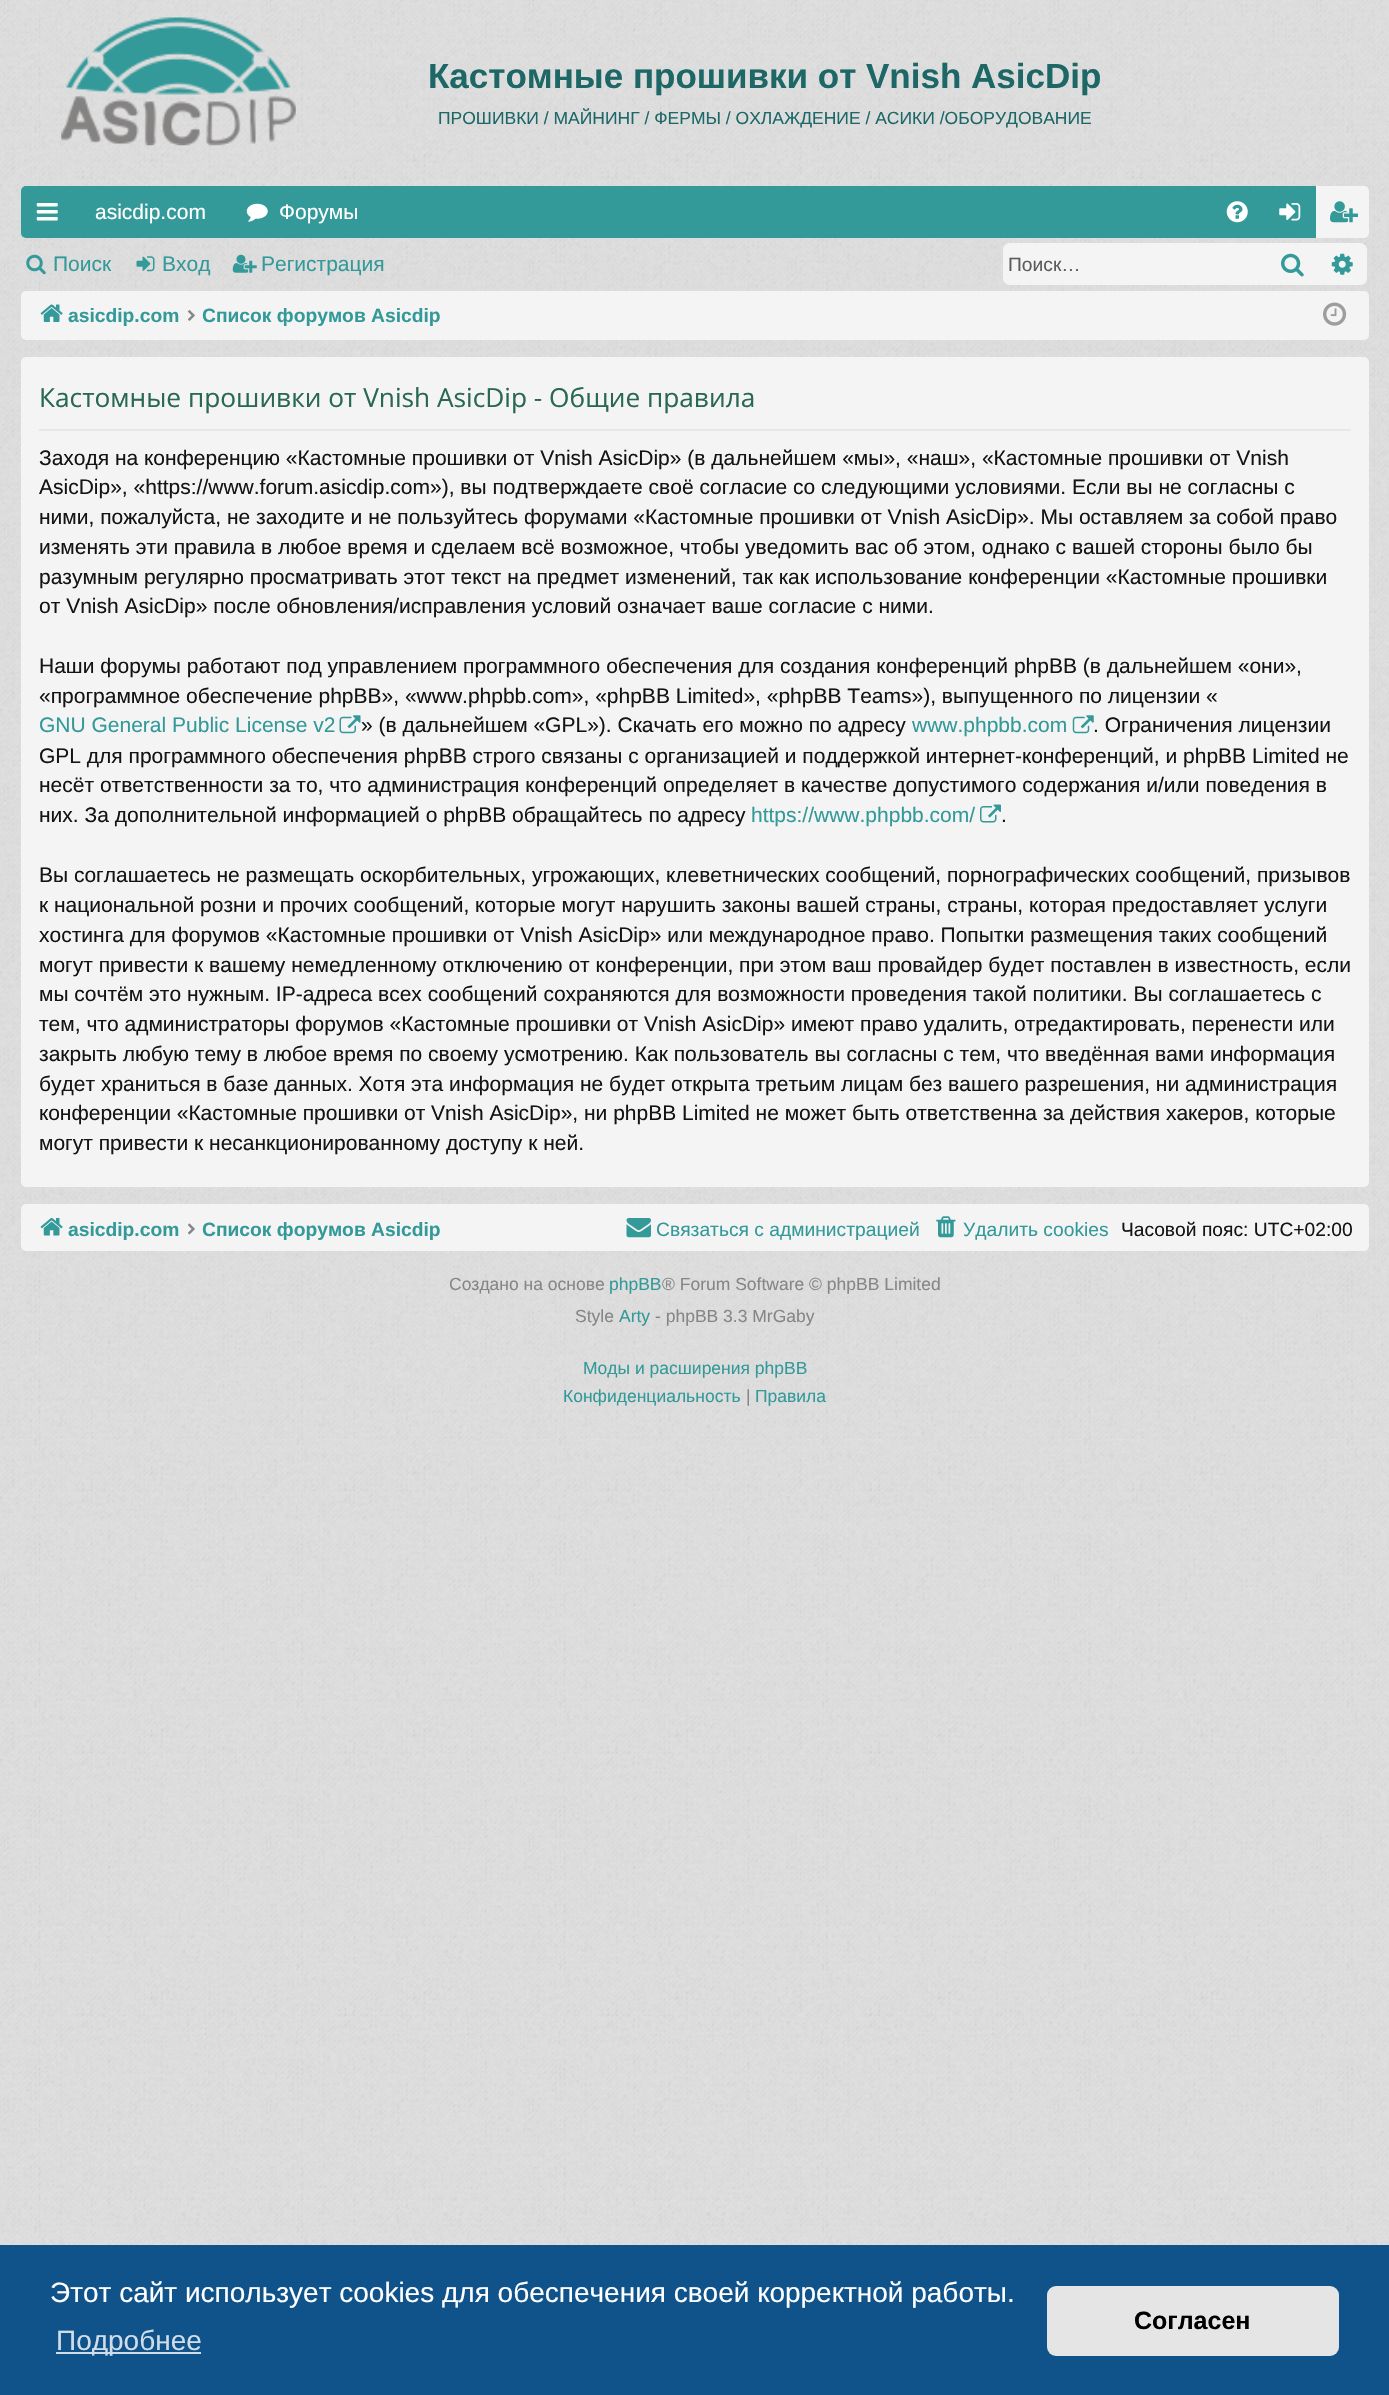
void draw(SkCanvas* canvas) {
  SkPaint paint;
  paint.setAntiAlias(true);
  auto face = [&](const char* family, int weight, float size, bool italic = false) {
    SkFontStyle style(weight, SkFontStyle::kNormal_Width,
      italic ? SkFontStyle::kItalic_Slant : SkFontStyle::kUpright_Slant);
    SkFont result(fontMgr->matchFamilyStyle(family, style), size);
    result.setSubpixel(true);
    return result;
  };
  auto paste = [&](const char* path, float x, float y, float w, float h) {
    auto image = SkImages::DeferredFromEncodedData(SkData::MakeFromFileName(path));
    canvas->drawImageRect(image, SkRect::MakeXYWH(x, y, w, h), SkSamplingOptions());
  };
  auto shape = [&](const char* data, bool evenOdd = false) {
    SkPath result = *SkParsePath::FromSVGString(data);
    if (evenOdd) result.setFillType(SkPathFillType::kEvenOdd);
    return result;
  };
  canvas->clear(0xffe0e0e0);
  paste("img/1.png", 0, 0, 1389, 2245);
  paste("img/2.png", 61, 17, 235, 129);
  paint.setColor(0xff339999);
  canvas->drawRoundRect(SkRect::MakeXYWH(21, 186, 1348, 52), 5, 5, paint);
  paste("img/3.png", 36, 203, 22, 18);
  paste("img/4.png", 246, 203, 22, 19);
  paste("img/5.png", 1226, 201, 22, 22);
  paste("img/6.png", 1279, 203, 22, 18);
  paint.setColor(0xfff4f4f4);
  canvas->drawPath(shape("M1316 186H1365C1367 186 1369 188 1369 190V234C1369 236 1367 238 1365 238H1316Z"), paint);
  paste("img/7.png", 1330, 201, 28, 22);
  paste("img/8.png", 26, 254, 20, 21);
  paste("img/9.png", 136, 256, 19, 16);
  paste("img/10.png", 232, 254, 25, 19);
  canvas->drawPath(shape("M1010 243H1265V285H1010C1006 285 1003 282 1003 278V250C1003 246 1006 243 1010 243Z"), paint);
  canvas->drawRect(SkRect::MakeXYWH(1265, 243, 53, 42), paint);
  paste("img/11.png", 1281, 253, 23, 24);
  canvas->drawPath(shape("M1318 243H1360C1364 243 1367 246 1367 250V278C1367 282 1364 285 1360 285H1318Z"), paint);
  paste("img/12.png", 1331, 253, 22, 22);
  canvas->drawRoundRect(SkRect::MakeXYWH(21, 291, 1348, 49), 5, 5, paint);
  paste("img/13.png", 40, 304, 23, 18);
  paste("img/14.png", 187, 310, 8, 11);
  paste("img/15.png", 1323, 302, 24, 24);
  canvas->drawRoundRect(SkRect::MakeXYWH(21, 357, 1348, 830), 5, 5, paint);
  paint.setColor(0xffe7e7e7);
  canvas->drawRect(SkRect::MakeXYWH(39, 429, 1312, 2), paint);
  paste("img/16.png", 339, 715, 22, 19);
  paste("img/17.png", 1072, 715, 22, 19);
  paste("img/18.png", 980, 804, 21, 19);
  paint.setColor(0xfff4f4f4);
  canvas->drawRoundRect(SkRect::MakeXYWH(21, 1204, 1348, 47), 5, 5, paint);
  paste("img/19.png", 40, 1218, 23, 18);
  paste("img/20.png", 188, 1223, 7, 12);
  paste("img/21.png", 626, 1218, 25, 20);
  paste("img/22.png", 936, 1216, 20, 22);
  paint.setColor(0xff0f538a);
  canvas->drawRect(SkRect::MakeXYWH(0, 2245, 1389, 150), paint);
  paint.setColor(0xffcfdde8);
  canvas->drawRect(SkRect::MakeXYWH(56, 2352, 145, 2), paint);
  paint.setColor(0xffe5e5e5);
  canvas->drawRoundRect(SkRect::MakeXYWH(1047, 2286, 292, 70), 9, 9, paint);
  auto f0 = face("Liberation Sans", 700, 35);
  paint.setColor(0xff1d6767);
  canvas->drawString("Кастомные прошивки от Vnish AsicDip", 428, 88, f0, paint);
  auto f1 = face("Liberation Sans", 400, 17.5f);
  canvas->drawString("ПРОШИВКИ / МАЙНИНГ / ФЕРМЫ / ОХЛАЖДЕНИЕ / АСИКИ /ОБОРУДОВАНИЕ", 438, 124, f1, paint);
  auto f2 = face("Liberation Sans", 400, 21);
  paint.setColor(0xffffffff);
  canvas->drawString("asicdip.com", 95, 219, f2, paint);
  canvas->drawString("Форумы", 279, 219, f2, paint);
  paint.setColor(0xff339999);
  {
    const struct { const char* s; float x, y; } items[] = {
      {"Поиск", 53, 271},
      {"Вход", 162, 271},
      {"Регистрация", 261, 271},
    };
    for (auto [s, x, y] : items) {
      canvas->drawString(s, x, y, f2, paint);
    }
  }
  auto f3 = face("Liberation Sans", 400, 19.25f);
  paint.setColor(0xff5b5b5b);
  canvas->drawString("Поиск…", 1008, 271, f3, paint);
  auto f4 = face("Liberation Sans", 700, 19.25f);
  paint.setColor(0xff339999);
  canvas->drawString("asicdip.com", 68, 322, f4, paint);
  canvas->drawString("Список форумов Asicdip", 202, 322, f4, paint);
  auto f5 = face("Open Sans", 400, 26.25f);
  paint.setColor(0xff296954);
  canvas->drawString("Кастомные прошивки от Vnish AsicDip - Общие правила", 39, 407, f5, paint);
  paint.setColor(0xff141414);
  {
    const struct { const char* s; float x, y; } items[] = {
      {"Заходя на конференцию «Кастомные прошивки от Vnish AsicDip» (в дальнейшем «мы», «наш», «Кастомные прошивки от Vnish", 39, 465},
      {"AsicDip», «https://www.forum.asicdip.com»), вы подтверждаете своё согласие со следующими условиями. Если вы не согласны с", 39, 494},
      {"ними, пожалуйста, не заходите и не пользуйтесь форумами «Кастомные прошивки от Vnish AsicDip». Мы оставляем за собой право", 39, 524},
      {"изменять эти правила в любое время и сделаем всё возможное, чтобы уведомить вас об этом, однако с вашей стороны было бы", 39, 554},
      {"разумным регулярно просматривать этот текст на предмет изменений, так как использование конференции «Кастомные прошивки", 39, 584},
      {"от Vnish AsicDip» после обновления/исправления условий означает ваше согласие с ними.", 39, 613},
      {"Наши форумы работают под управлением программного обеспечения для создания конференций phpBB (в дальнейшем «они»,", 39, 673},
      {"«программное обеспечение phpBB», «www.phpbb.com», «phpBB Limited», «phpBB Teams»), выпущенного по лицензии «", 39, 703},
    };
    for (auto [s, x, y] : items) {
      canvas->drawString(s, x, y, f2, paint);
    }
  }
  paint.setColor(0xff339999);
  canvas->drawString("GNU General Public License v2", 39, 732, f2, paint);
  paint.setColor(0xff141414);
  canvas->drawString("» (в дальнейшем «GPL»). Скачать его можно по адресу", 361, 732, f2, paint);
  paint.setColor(0xff339999);
  canvas->drawString("www.phpbb.com", 912, 732, f2, paint);
  paint.setColor(0xff141414);
  {
    const struct { const char* s; float x, y; } items[] = {
      {". Ограничения лицензии", 1093, 732},
      {"GPL для программного обеспечения phpBB строго связаны с организацией и поддержкой интернет-конференций, и phpBB Limited не", 39, 763},
      {"несёт ответственности за то, что администрация конференций определяет в качестве допустимого содержания и/или поведения в", 39, 792},
      {"них. За дополнительной информацией о phpBB обращайтесь по адресу", 39, 822},
    };
    for (auto [s, x, y] : items) {
      canvas->drawString(s, x, y, f2, paint);
    }
  }
  paint.setColor(0xff339999);
  canvas->drawString("https://www.phpbb.com/", 751, 822, f2, paint);
  paint.setColor(0xff141414);
  {
    const struct { const char* s; float x, y; } items[] = {
      {".", 1001, 822},
      {"Вы соглашаетесь не размещать оскорбительных, угрожающих, клеветнических сообщений, порнографических сообщений, призывов", 39, 882},
      {"к национальной розни и прочих сообщений, которые могут нарушить законы вашей страны, страны, которая предоставляет услуги", 39, 912},
      {"хостинга для форумов «Кастомные прошивки от Vnish AsicDip» или международное право. Попытки размещения таких сообщений", 39, 942},
      {"могут привести к вашему немедленному отключению от конференции, при этом ваш провайдер будет поставлен в известность, если", 39, 972},
      {"мы сочтём это нужным. IP-адреса всех сообщений сохраняются для возможности проведения такой политики. Вы соглашаетесь с", 39, 1001},
      {"тем, что администраторы форумов «Кастомные прошивки от Vnish AsicDip» имеют право удалить, отредактировать, перенести или", 39, 1031},
      {"закрыть любую тему в любое время по своему усмотрению. Как пользователь вы согласны с тем, что введённая вами информация", 39, 1061},
      {"будет храниться в базе данных. Хотя эта информация не будет открыта третьим лицам без вашего разрешения, ни администрация", 39, 1091},
      {"конференции «Кастомные прошивки от Vnish AsicDip», ни phpBB Limited не может быть ответственна за действия хакеров, которые", 39, 1120},
      {"могут привести к несанкционированному доступу к ней.", 39, 1150},
    };
    for (auto [s, x, y] : items) {
      canvas->drawString(s, x, y, f2, paint);
    }
  }
  paint.setColor(0xff339999);
  canvas->drawString("asicdip.com", 68, 1236, f4, paint);
  canvas->drawString("Список форумов Asicdip", 202, 1236, f4, paint);
  canvas->drawString("Связаться с администрацией", 656, 1236, f3, paint);
  canvas->drawString("Удалить cookies", 963, 1236, f3, paint);
  paint.setColor(0xff141414);
  canvas->drawString("Часовой пояс: UTC+02:00", 1121, 1236, f3, paint);
  paint.setColor(0xff868686);
  canvas->drawString("Создано на основе", 449, 1290, f1, paint);
  paint.setColor(0xff339999);
  canvas->drawString("phpBB", 609, 1290, f1, paint);
  paint.setColor(0xff868686);
  canvas->drawString("® Forum Software © phpBB Limited", 662, 1290, f1, paint);
  canvas->drawString("Style", 575, 1322, f1, paint);
  paint.setColor(0xff339999);
  canvas->drawString("Arty", 619, 1322, f1, paint);
  paint.setColor(0xff868686);
  canvas->drawString("- phpBB 3.3 MrGaby", 655, 1322, f1, paint);
  paint.setColor(0xff339999);
  canvas->drawString("Моды и расширения phpBB", 583, 1374, f1, paint);
  canvas->drawString("Конфиденциальность", 563, 1402, f1, paint);
  paint.setColor(0xff868686);
  canvas->drawString("|", 746, 1402, f1, paint);
  paint.setColor(0xff339999);
  canvas->drawString("Правила", 755, 1402, f1, paint);
  auto f6 = face("Liberation Sans", 400, 28);
  paint.setColor(0xffffffff);
  canvas->drawString("Этот сайт использует cookies для обеспечения своей корректной работы.", 50, 2302, f6, paint);
  paint.setColor(0xffcfdde8);
  canvas->drawString("Подробнее", 56, 2350, f6, paint);
  auto f7 = face("Liberation Sans", 700, 25);
  paint.setColor(0xff000000);
  canvas->drawString("Согласен", 1134, 2329, f7, paint);
}
